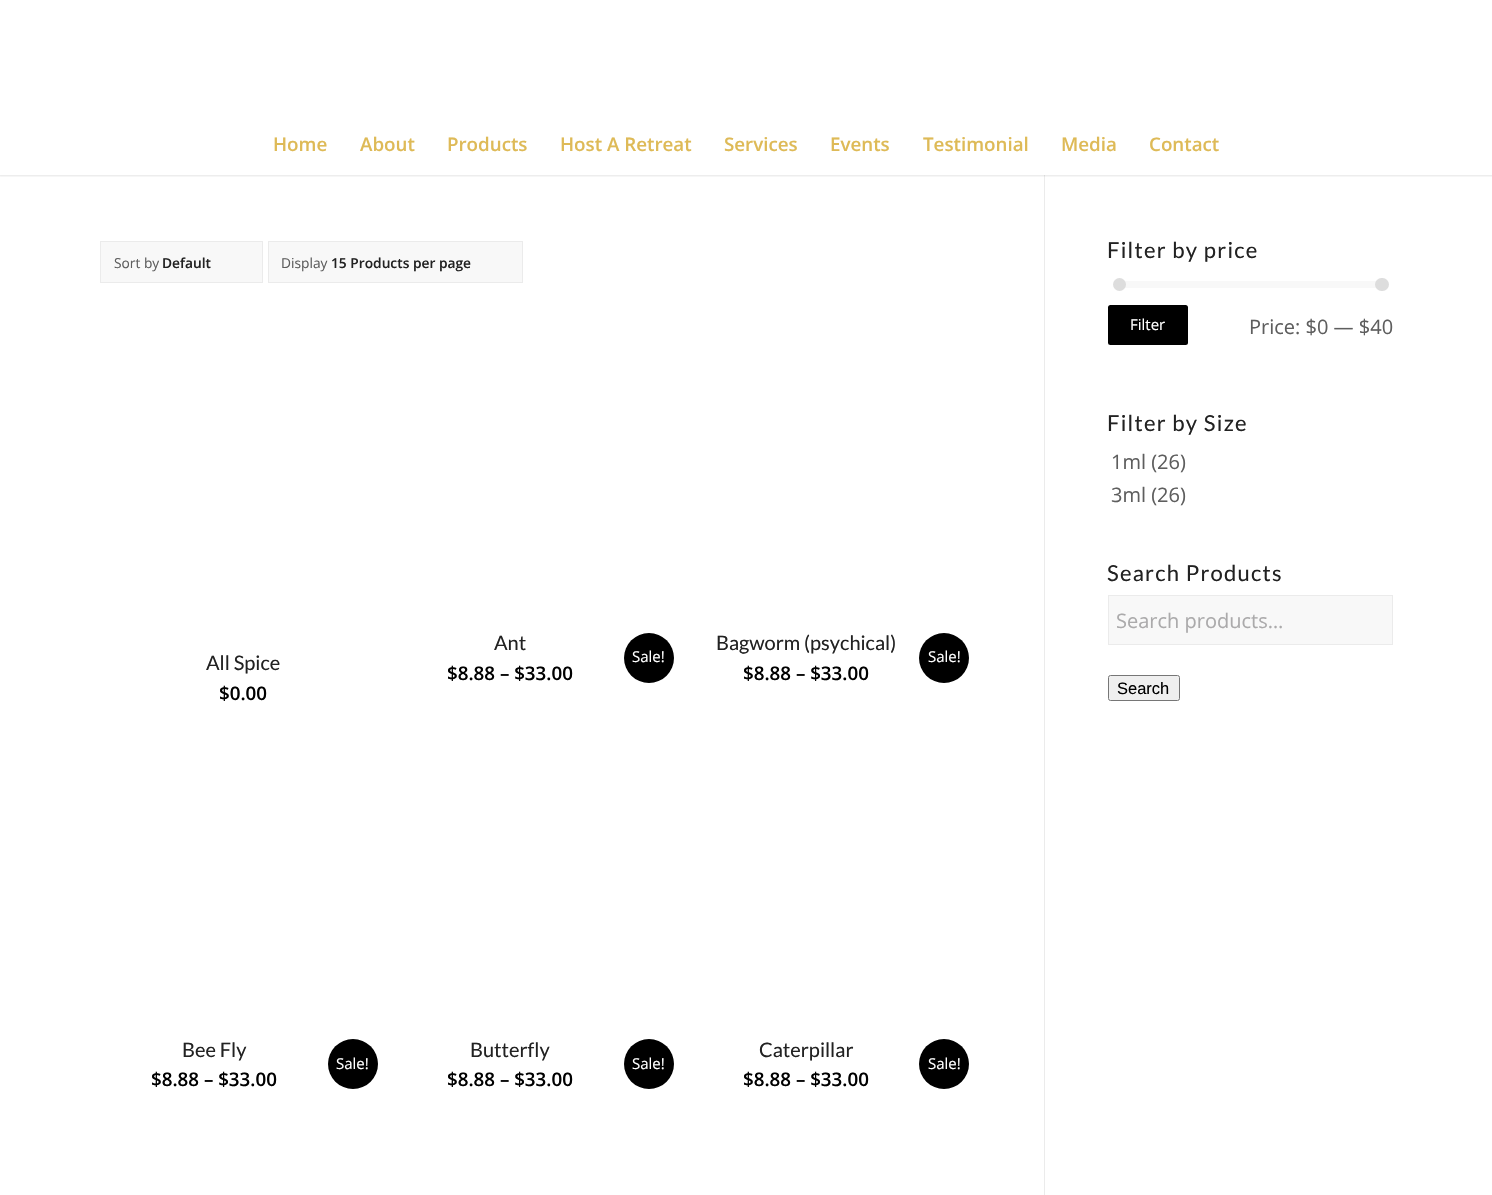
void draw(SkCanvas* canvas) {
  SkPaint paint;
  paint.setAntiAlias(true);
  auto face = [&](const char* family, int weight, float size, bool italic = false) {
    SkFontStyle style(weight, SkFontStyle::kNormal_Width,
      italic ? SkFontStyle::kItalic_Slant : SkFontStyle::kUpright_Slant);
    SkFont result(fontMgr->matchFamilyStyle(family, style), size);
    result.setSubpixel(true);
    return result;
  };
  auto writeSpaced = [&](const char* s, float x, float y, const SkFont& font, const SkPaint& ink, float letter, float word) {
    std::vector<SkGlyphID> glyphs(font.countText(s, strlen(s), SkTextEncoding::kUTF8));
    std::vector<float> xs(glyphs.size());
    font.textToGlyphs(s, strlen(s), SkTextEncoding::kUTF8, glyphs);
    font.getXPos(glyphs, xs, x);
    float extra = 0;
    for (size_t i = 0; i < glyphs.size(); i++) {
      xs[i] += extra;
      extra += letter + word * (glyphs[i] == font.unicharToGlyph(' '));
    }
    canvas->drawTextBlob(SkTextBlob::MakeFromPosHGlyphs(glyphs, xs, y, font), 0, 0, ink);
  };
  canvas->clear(0xffffffff);
  paint.setColor(0xffebebeb);
  canvas->drawRect(SkRect::MakeXYWH(1044, 175, 1, 1020), paint);
  canvas->save();
  canvas->clipRect(SkRect::MakeXYWH(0, 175, 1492, 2));
  paint.setColor(0x1a000000);
  paint.setMaskFilter(SkMaskFilter::MakeBlur(kNormal_SkBlurStyle, 1));
  canvas->drawRect(SkRect::MakeXYWH(-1, -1, 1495, 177), paint);
  paint.setMaskFilter(nullptr);
  canvas->restore();
  paint.setColor(0xfff8f8f8);
  canvas->drawRect(SkRect::MakeXYWH(100.5f, 241.5f, 162, 41), paint);
  paint.setStroke(true);
  paint.setStrokeWidth(1);
  paint.setColor(0xffebebeb);
  canvas->drawRect(SkRect::MakeXYWH(100.5f, 241.5f, 162, 41), paint);
  paint.setStroke(false);
  paint.setColor(0xfff8f8f8);
  canvas->drawRect(SkRect::MakeXYWH(268.5f, 241.5f, 254, 41), paint);
  paint.setStroke(true);
  paint.setColor(0xffebebeb);
  canvas->drawRect(SkRect::MakeXYWH(268.5f, 241.5f, 254, 41), paint);
  paint.setStroke(false);
  paint.setColor(0xff000000);
  canvas->drawCircle(649, 658, 25, paint);
  canvas->drawCircle(944, 658, 25, paint);
  canvas->drawCircle(353, 1064, 25, paint);
  canvas->drawCircle(649, 1064, 25, paint);
  canvas->drawCircle(944, 1064, 25, paint);
  paint.setColor(0xfff8f8f8);
  canvas->drawRect(SkRect::MakeXYWH(1119, 281, 262, 7), paint);
  paint.setColor(0xffdddddd);
  canvas->drawCircle(1119.5f, 284.5f, 6.5f, paint);
  canvas->drawRoundRect(SkRect::MakeXYWH(1375, 278, 14, 13), 6.5f, 6.5f, paint);
  paint.setColor(0xff000000);
  canvas->drawRoundRect(SkRect::MakeXYWH(1108, 305, 80, 40), 2.5f, 2.5f, paint);
  paint.setColor(0xfff8f8f8);
  canvas->drawRect(SkRect::MakeXYWH(1108.5f, 595.5f, 284, 49), paint);
  paint.setStroke(true);
  paint.setColor(0xffebebeb);
  canvas->drawRect(SkRect::MakeXYWH(1108.5f, 595.5f, 284, 49), paint);
  paint.setStroke(false);
  paint.setColor(0xffefefef);
  canvas->drawRoundRect(SkRect::MakeXYWH(1108.5f, 675.5f, 71, 25), 2, 2, paint);
  paint.setStroke(true);
  paint.setColor(0xff767676);
  canvas->drawRoundRect(SkRect::MakeXYWH(1108.5f, 675.5f, 71, 25), 2, 2, paint);
  auto f0 = face("Open Sans", 600, 18.75f);
  paint.setStroke(false);
  paint.setColor(0xffdeba57);
  {
    const struct { const char* s; float x, y; } items[] = {
      {"Home", 273, 151},
      {"About", 360, 151},
      {"Products", 447, 151},
      {"Host A Retreat", 560, 151},
      {"Services", 724, 151},
      {"Events", 830, 151},
      {"Testimonial", 923, 151},
      {"Media", 1061, 151},
      {"Contact", 1149, 151},
    };
    for (auto [s, x, y] : items) {
      canvas->drawString(s, x, y, f0, paint);
    }
  }
  auto f1 = face("Open Sans", 400, 13.75f);
  paint.setColor(0xff5e5e5e);
  canvas->drawString("Sort by", 114, 268, f1, paint);
  auto f2 = face("Open Sans", 600, 13.75f);
  paint.setColor(0xff222222);
  canvas->drawString("Default", 162, 268, f2, paint);
  paint.setColor(0xff5e5e5e);
  canvas->drawString("Display", 281, 268, f1, paint);
  paint.setColor(0xff222222);
  canvas->drawString("15 Products per page", 331, 268, f2, paint);
  auto f3 = face("Lato", 400, 20);
  canvas->drawString("All Spice", 206, 670, f3, paint);
  paint.setColor(0xff000000);
  canvas->drawString("$0.00", 219, 700, f0, paint);
  paint.setColor(0xff222222);
  canvas->drawString("Ant", 494, 650, f3, paint);
  auto f4 = face("Open Sans", 400, 15);
  paint.setColor(0xffffffff);
  canvas->drawString("Sale!", 632, 662, f4, paint);
  paint.setColor(0xff000000);
  canvas->drawString("$8.88 – $33.00", 447, 680, f0, paint);
  paint.setColor(0xff222222);
  canvas->drawString("Bagworm (psychical)", 716, 650, f3, paint);
  paint.setColor(0xffffffff);
  canvas->drawString("Sale!", 928, 662, f4, paint);
  paint.setColor(0xff000000);
  canvas->drawString("$8.88 – $33.00", 743, 680, f0, paint);
  paint.setColor(0xff222222);
  canvas->drawString("Bee Fly", 182, 1057, f3, paint);
  paint.setColor(0xffffffff);
  canvas->drawString("Sale!", 336, 1069, f4, paint);
  paint.setColor(0xff000000);
  canvas->drawString("$8.88 – $33.00", 151, 1086, f0, paint);
  paint.setColor(0xff222222);
  canvas->drawString("Butterfly", 470, 1057, f3, paint);
  paint.setColor(0xffffffff);
  canvas->drawString("Sale!", 632, 1069, f4, paint);
  paint.setColor(0xff000000);
  canvas->drawString("$8.88 – $33.00", 447, 1086, f0, paint);
  paint.setColor(0xff222222);
  canvas->drawString("Caterpillar", 759, 1057, f3, paint);
  paint.setColor(0xffffffff);
  canvas->drawString("Sale!", 928, 1069, f4, paint);
  paint.setColor(0xff000000);
  canvas->drawString("$8.88 – $33.00", 743, 1086, f0, paint);
  auto f5 = face("Lato", 400, 22);
  paint.setColor(0xff222222);
  writeSpaced("Filter by price", 1107, 258, f5, paint, 1.25f, 0);
  paint.setColor(0xffffffff);
  canvas->drawString("Filter", 1130, 330, f4, paint);
  auto f6 = face("Open Sans", 400, 20);
  paint.setColor(0xff5e5e5e);
  canvas->drawString("Price: $0 — $40", 1249, 334, f6, paint);
  paint.setColor(0xff222222);
  writeSpaced("Filter by Size", 1107, 431, f5, paint, 1.25f, 0);
  paint.setColor(0xff5e5e5e);
  canvas->drawString("1ml (26)", 1111, 469, f6, paint);
  canvas->drawString("3ml (26)", 1111, 502, f6, paint);
  paint.setColor(0xff222222);
  writeSpaced("Search Products", 1107, 581, f5, paint, 1.25f, 0);
  paint.setColor(0xffabaaab);
  canvas->drawString("Search products…", 1116, 628, f6, paint);
  auto f7 = face("Liberation Sans", 400, 16.5f);
  paint.setColor(0xff000000);
  canvas->drawString("Search", 1117, 694, f7, paint);
}
